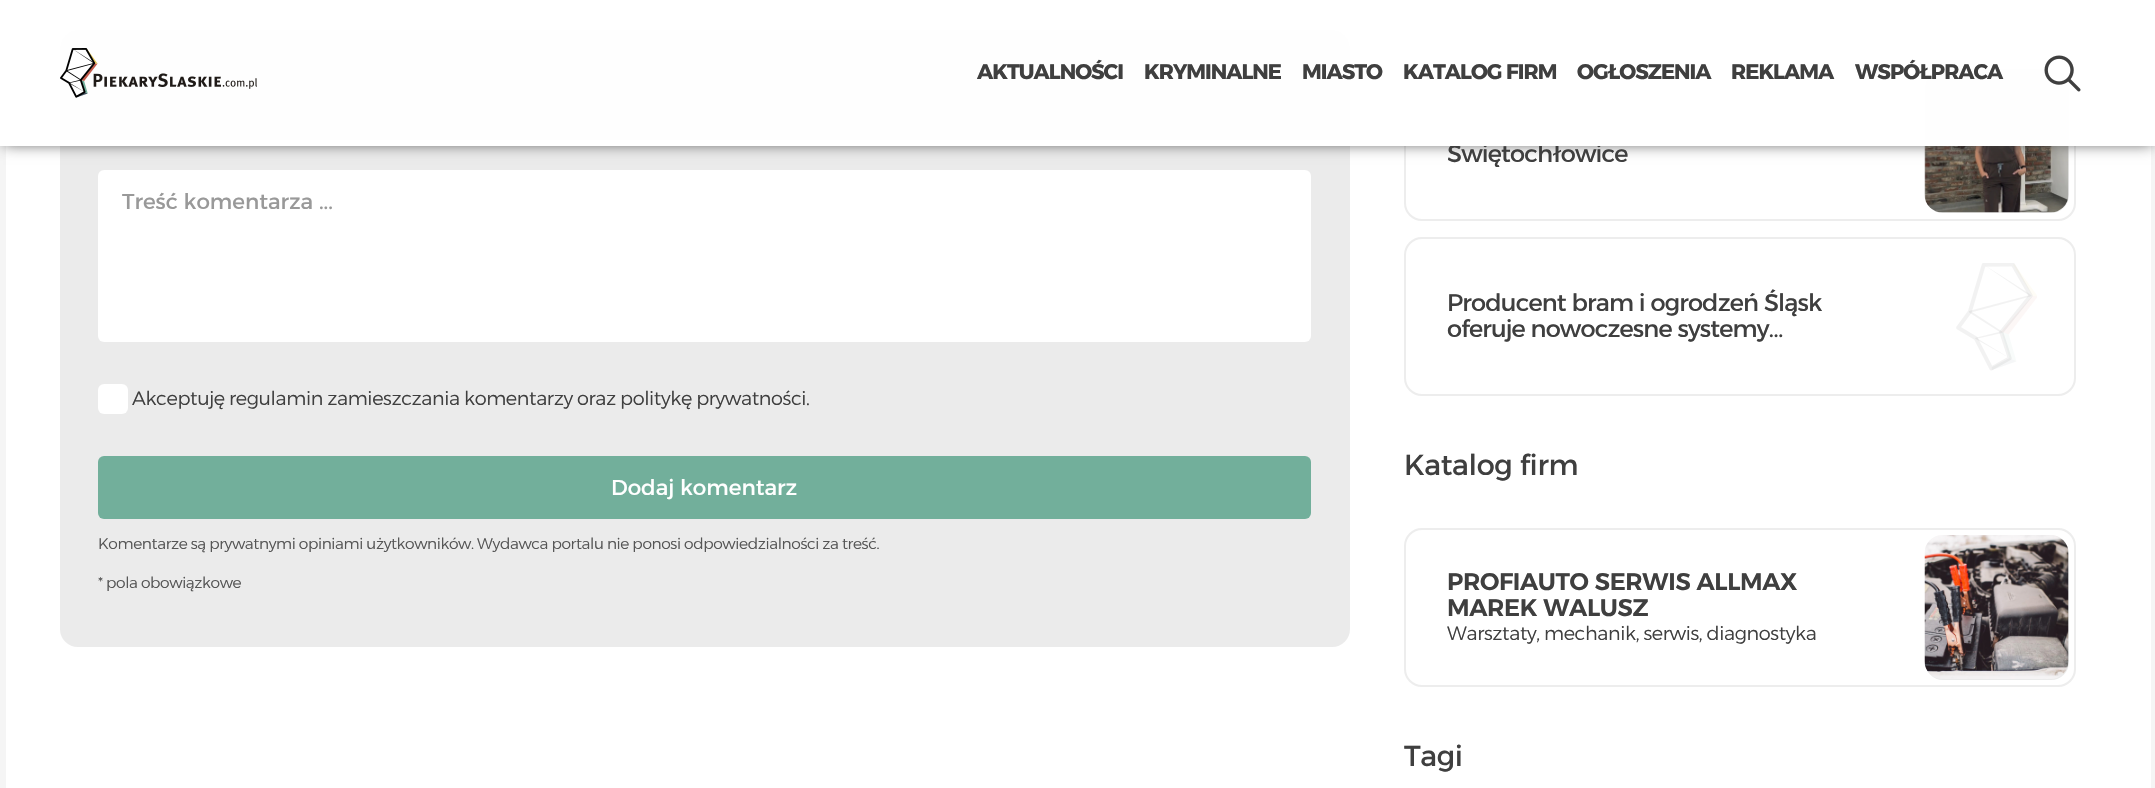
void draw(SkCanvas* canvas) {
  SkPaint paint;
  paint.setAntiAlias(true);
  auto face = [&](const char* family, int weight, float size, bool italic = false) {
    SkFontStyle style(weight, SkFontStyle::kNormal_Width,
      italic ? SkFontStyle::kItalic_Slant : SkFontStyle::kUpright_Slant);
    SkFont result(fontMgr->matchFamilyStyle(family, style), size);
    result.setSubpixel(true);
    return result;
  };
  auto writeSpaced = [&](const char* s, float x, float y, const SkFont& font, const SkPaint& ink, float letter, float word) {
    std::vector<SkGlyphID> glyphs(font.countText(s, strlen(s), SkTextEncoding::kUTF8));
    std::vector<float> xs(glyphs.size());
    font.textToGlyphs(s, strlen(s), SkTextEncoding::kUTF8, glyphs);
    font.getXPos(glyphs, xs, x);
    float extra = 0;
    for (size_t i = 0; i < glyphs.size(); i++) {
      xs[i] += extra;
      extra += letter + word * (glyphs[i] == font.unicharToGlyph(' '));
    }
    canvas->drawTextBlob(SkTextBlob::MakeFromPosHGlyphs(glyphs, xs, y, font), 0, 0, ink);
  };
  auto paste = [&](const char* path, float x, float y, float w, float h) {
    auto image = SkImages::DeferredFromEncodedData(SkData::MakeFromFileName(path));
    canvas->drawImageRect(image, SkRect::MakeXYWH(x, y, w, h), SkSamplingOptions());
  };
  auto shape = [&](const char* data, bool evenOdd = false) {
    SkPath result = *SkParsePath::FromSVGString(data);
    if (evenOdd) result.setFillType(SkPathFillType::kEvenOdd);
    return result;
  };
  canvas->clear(0xfff5f5f5);
  paint.setColor(0xffffffff);
  canvas->drawRect(SkRect::MakeXYWH(6, 146, 2145, 642), paint);
  paint.setColor(0xffebebeb);
  canvas->drawRoundRect(SkRect::MakeXYWH(60, 30, 1290, 617), 18, 18, paint);
  paint.setStroke(true);
  paint.setStrokeWidth(2);
  paint.setColor(0xffededed);
  canvas->drawRoundRect(SkRect::MakeXYWH(1405, 63, 670, 157), 17, 17, paint);
  paint.setStroke(false);
  paint.setColor(0xffebebeb);
  canvas->drawRoundRect(SkRect::MakeXYWH(1925, 69, 144, 144), 18, 18, paint);
  paste("img/3.png", 1924, 146, 145, 67);
  canvas->save();
  canvas->clipPath(shape("M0 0H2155V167H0ZM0 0H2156V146H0Z", true), true);
  paint.setColor(0xff3f3f3f);
  paint.setMaskFilter(SkMaskFilter::MakeBlur(kNormal_SkBlurStyle, 7.5f));
  canvas->drawRect(SkRect::MakeXYWH(3, 3, 2150, 140), paint);
  paint.setMaskFilter(nullptr);
  canvas->restore();
  paint.setColor(0xffffffff);
  canvas->drawRoundRect(SkRect::MakeXYWH(98, 170, 1213, 172), 6, 6, paint);
  canvas->drawRoundRect(SkRect::MakeXYWH(98, 384, 30, 30), 6, 6, paint);
  paint.setColor(0xff72af9b);
  canvas->drawRoundRect(SkRect::MakeXYWH(98, 456, 1213, 63), 6, 6, paint);
  paint.setStroke(true);
  paint.setColor(0xffededed);
  canvas->drawRoundRect(SkRect::MakeXYWH(1405, 238, 670, 157), 17, 17, paint);
  paste("img/4.png", 1956, 263, 81, 108);
  canvas->drawRoundRect(SkRect::MakeXYWH(1405, 529, 670, 157), 17, 17, paint);
  paint.setStroke(false);
  paint.setColor(0xffebebeb);
  canvas->drawRoundRect(SkRect::MakeXYWH(1925, 536, 144, 144), 18, 18, paint);
  paste("img/5.png", 1924, 535, 145, 144);
  auto f0 = face("Alexandria", 400, 21.5f);
  paint.setColor(0xff999999);
  canvas->drawString("Treść komentarza ...", 122, 209, f0, paint);
  auto f1 = face("Alexandria", 300, 19.2f);
  paint.setColor(0xff3f3f3f);
  writeSpaced("Akceptuję regulamin zamieszczania komentarzy oraz politykę prywatności.", 132, 405, f1, paint, -0.36f, 0);
  paint.setColor(0xffffffff);
  canvas->drawString("Dodaj komentarz", 611, 495, f0, paint);
  auto f2 = face("Alexandria", 300, 15.35f);
  paint.setColor(0xff555555);
  writeSpaced("Komentarze są prywatnymi opiniami użytkowników. Wydawca portalu nie ponosi odpowiedzialności za treść.", 98, 549, f2, paint, -0.36f, 0);
  writeSpaced("* pola obowiązkowe", 98, 588, f2, paint, -0.36f, 0);
  canvas->save();
  canvas->clipRect(SkRect::MakeXYWH(1448, 114, 441, 53));
  auto f3 = face("Alexandria", 400, 24);
  paint.setColor(0xff3f3f3f);
  writeSpaced("Świętochłowice", 1447, 162, f3, paint, -0.8f, 0);
  canvas->restore();
  paint.setColor(0xf2ffffff);
  canvas->drawRect(SkRect::MakeXYWH(0, 0, 2155, 146), paint);
  auto f4 = face("Alexandria", 700, 21);
  paint.setColor(0xff3f3f3f);
  {
    const struct { const char* s; float x, y; } items[] = {
      {"WSPÓŁPRACA", 1855, 79},
      {"REKLAMA", 1731, 79},
      {"OGŁOSZENIA", 1577, 79},
      {"KATALOG FIRM", 1403, 79},
      {"MIASTO", 1302, 79},
      {"KRYMINALNE", 1144, 79},
      {"AKTUALNOŚCI", 977, 79},
    };
    for (auto [s, x, y] : items) {
      writeSpaced(s, x, y, f4, paint, -1, 0);
    }
  }
  paste("img/2.png", 2044, 55, 37, 37);
  paste("img/1.png", 60, 48, 197, 50);
  paint.setColor(0xffffffff);
  canvas->drawRect(SkRect::MakeXYWH(60, 140, 2009, 6), paint);
  paint.setColor(0xff3f3f3f);
  writeSpaced("Producent bram i ogrodzeń Śląsk", 1447, 311, f3, paint, -0.8f, 0);
  writeSpaced("oferuje nowoczesne systemy…", 1447, 337, f3, paint, -0.8f, 0);
  auto f5 = face("Alexandria", 400, 28.75f);
  writeSpaced("Katalog firm", 1404, 475, f5, paint, -0.36f, 0);
  auto f6 = face("Alexandria", 600, 24);
  writeSpaced("PROFIAUTO SERWIS ALLMAX", 1447, 590, f6, paint, -0.36f, 0);
  writeSpaced("MAREK WALUSZ", 1447, 616, f6, paint, -0.36f, 0);
  writeSpaced("Warsztaty, mechanik, serwis, diagnostyka", 1447, 640, f1, paint, -0.36f, 0);
  writeSpaced("Tagi", 1404, 766, f5, paint, -0.36f, 0);
}
